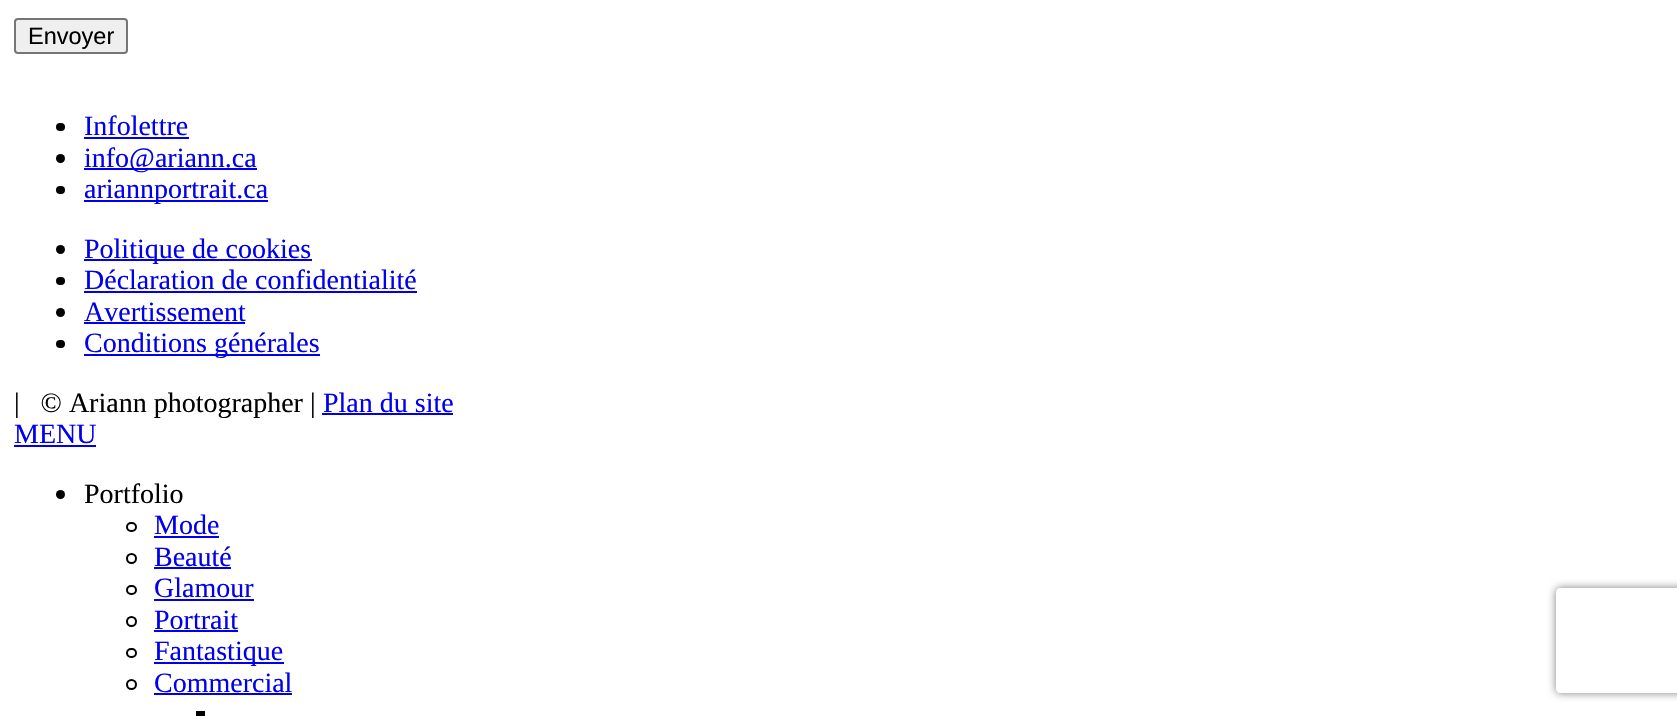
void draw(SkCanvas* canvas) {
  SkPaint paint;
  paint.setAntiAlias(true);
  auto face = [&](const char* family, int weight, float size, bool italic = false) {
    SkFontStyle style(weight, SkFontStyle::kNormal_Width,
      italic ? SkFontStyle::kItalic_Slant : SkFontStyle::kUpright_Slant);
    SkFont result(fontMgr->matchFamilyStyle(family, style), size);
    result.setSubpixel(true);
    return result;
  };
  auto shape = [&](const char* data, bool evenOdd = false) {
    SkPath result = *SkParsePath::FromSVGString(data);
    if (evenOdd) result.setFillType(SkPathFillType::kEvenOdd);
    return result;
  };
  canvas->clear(0xffffffff);
  paint.setColor(0xffefefef);
  canvas->drawRoundRect(SkRect::MakeXYWH(15, 19, 112, 34), 3, 3, paint);
  paint.setStroke(true);
  paint.setStrokeWidth(2);
  paint.setColor(0xff767676);
  canvas->drawRoundRect(SkRect::MakeXYWH(15, 19, 112, 34), 3, 3, paint);
  paint.setStroke(false);
  paint.setColor(0xff000000);
  canvas->drawRoundRect(SkRect::MakeXYWH(56, 123, 9, 8), 4, 4, paint);
  paint.setColor(0xff0000ee);
  canvas->drawRect(SkRect::MakeXYWH(84, 137, 105, 2), paint);
  paint.setColor(0xff000000);
  canvas->drawCircle(60.5f, 158.5f, 4.5f, paint);
  paint.setColor(0xff0000ee);
  canvas->drawRect(SkRect::MakeXYWH(84, 168, 173, 2), paint);
  paint.setColor(0xff000000);
  canvas->drawRoundRect(SkRect::MakeXYWH(56, 186, 9, 8), 4, 4, paint);
  paint.setColor(0xff0000ee);
  canvas->drawRect(SkRect::MakeXYWH(84, 200, 184, 2), paint);
  paint.setColor(0xff000000);
  canvas->drawCircle(60.5f, 249.5f, 4.5f, paint);
  paint.setColor(0xff0000ee);
  canvas->drawRect(SkRect::MakeXYWH(84, 259, 228, 2), paint);
  paint.setColor(0xff000000);
  canvas->drawRoundRect(SkRect::MakeXYWH(56, 277, 9, 8), 4, 4, paint);
  paint.setColor(0xff0000ee);
  canvas->drawRect(SkRect::MakeXYWH(84, 291, 333, 2), paint);
  paint.setColor(0xff000000);
  canvas->drawCircle(60.5f, 312.5f, 4.5f, paint);
  paint.setColor(0xff0000ee);
  canvas->drawRect(SkRect::MakeXYWH(84, 322, 161, 2), paint);
  paint.setColor(0xff000000);
  canvas->drawRoundRect(SkRect::MakeXYWH(56, 340, 9, 8), 4, 4, paint);
  {
    const struct { float x, y, w, h; SkColor color; } items[] = {
      {84, 354, 236, 2, 0xff0000ee},
      {322, 413, 131, 2, 0xff0000ee},
      {14, 445, 82, 2, 0xff0000ee},
    };
    for (auto [x, y, w, h, color] : items) {
      paint.setColor(color);
      canvas->drawRect(SkRect::MakeXYWH(x, y, w, h), paint);
    }
  }
  paint.setColor(0xff000000);
  canvas->drawCircle(60.5f, 494.5f, 4.5f, paint);
  paint.setStroke(true);
  canvas->drawRoundRect(SkRect::MakeXYWH(127, 523, 9, 8), 4, 4, paint);
  paint.setStroke(false);
  paint.setColor(0xff0000ee);
  canvas->drawRect(SkRect::MakeXYWH(154, 536, 65, 2), paint);
  paint.setStroke(true);
  paint.setColor(0xff000000);
  canvas->drawCircle(131.5f, 558.5f, 4.5f, paint);
  paint.setStroke(false);
  paint.setColor(0xff0000ee);
  canvas->drawRect(SkRect::MakeXYWH(154, 567, 77, 2), paint);
  paint.setStroke(true);
  paint.setColor(0xff000000);
  canvas->drawRoundRect(SkRect::MakeXYWH(127, 586, 9, 8), 4, 4, paint);
  paint.setStroke(false);
  paint.setColor(0xff0000ee);
  canvas->drawRect(SkRect::MakeXYWH(154, 599, 100, 2), paint);
  paint.setStroke(true);
  paint.setColor(0xff000000);
  canvas->drawCircle(131.5f, 621.5f, 4.5f, paint);
  paint.setStroke(false);
  paint.setColor(0xff0000ee);
  canvas->drawRect(SkRect::MakeXYWH(154, 630, 84, 2), paint);
  paint.setStroke(true);
  paint.setColor(0xff000000);
  canvas->drawRoundRect(SkRect::MakeXYWH(127, 649, 9, 8), 4, 4, paint);
  paint.setStroke(false);
  paint.setColor(0xff0000ee);
  canvas->drawRect(SkRect::MakeXYWH(154, 662, 130, 2), paint);
  paint.setStroke(true);
  paint.setColor(0xff000000);
  canvas->drawCircle(131.5f, 684.5f, 4.5f, paint);
  paint.setStroke(false);
  paint.setColor(0xff0000ee);
  canvas->drawRect(SkRect::MakeXYWH(154, 693, 138, 2), paint);
  paint.setColor(0xff000000);
  canvas->drawRect(SkRect::MakeXYWH(196, 711, 9, 5), paint);
  canvas->save();
  canvas->clipPath(shape("M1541 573H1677V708H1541ZM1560 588H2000C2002 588 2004 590 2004 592V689C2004 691 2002 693 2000 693H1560C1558 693 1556 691 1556 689V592C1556 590 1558 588 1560 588Z", true), true);
  paint.setColor(0xff808080);
  paint.setMaskFilter(SkMaskFilter::MakeBlur(kNormal_SkBlurStyle, 4.5f));
  canvas->drawRoundRect(SkRect::MakeXYWH(1556, 588, 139, 105), 4, 4, paint);
  paint.setMaskFilter(nullptr);
  canvas->restore();
  auto f0 = face("Liberation Sans", 400, 23.5f);
  paint.setColor(0xff000000);
  canvas->drawString("Envoyer", 28, 44, f0, paint);
  auto f1 = face("Liberation Serif", 400, 28);
  paint.setColor(0xff0000ee);
  {
    const struct { const char* s; float x, y; } items[] = {
      {"Infolettre", 84, 135},
      {"info@ariann.ca", 84, 167},
      {"ariannportrait.ca", 84, 198},
      {"Politique de cookies", 84, 258},
      {"Déclaration de confidentialité", 84, 289},
      {"Avertissement", 84, 321},
      {"Conditions générales", 84, 352},
    };
    for (auto [s, x, y] : items) {
      canvas->drawString(s, x, y, f1, paint);
    }
  }
  paint.setColor(0xff000000);
  canvas->drawString("|   © Ariann photographer |", 14, 412, f1, paint);
  paint.setColor(0xff0000ee);
  canvas->drawString("Plan du site", 323, 412, f1, paint);
  canvas->drawString("MENU", 14, 443, f1, paint);
  paint.setColor(0xff000000);
  canvas->drawString("Portfolio", 84, 503, f1, paint);
  paint.setColor(0xff0000ee);
  {
    const struct { const char* s; float x, y; } items[] = {
      {"Mode", 154, 534},
      {"Beauté", 154, 566},
      {"Glamour", 154, 597},
      {"Portrait", 154, 629},
      {"Fantastique", 154, 660},
      {"Commercial", 154, 692},
    };
    for (auto [s, x, y] : items) {
      canvas->drawString(s, x, y, f1, paint);
    }
  }
}
